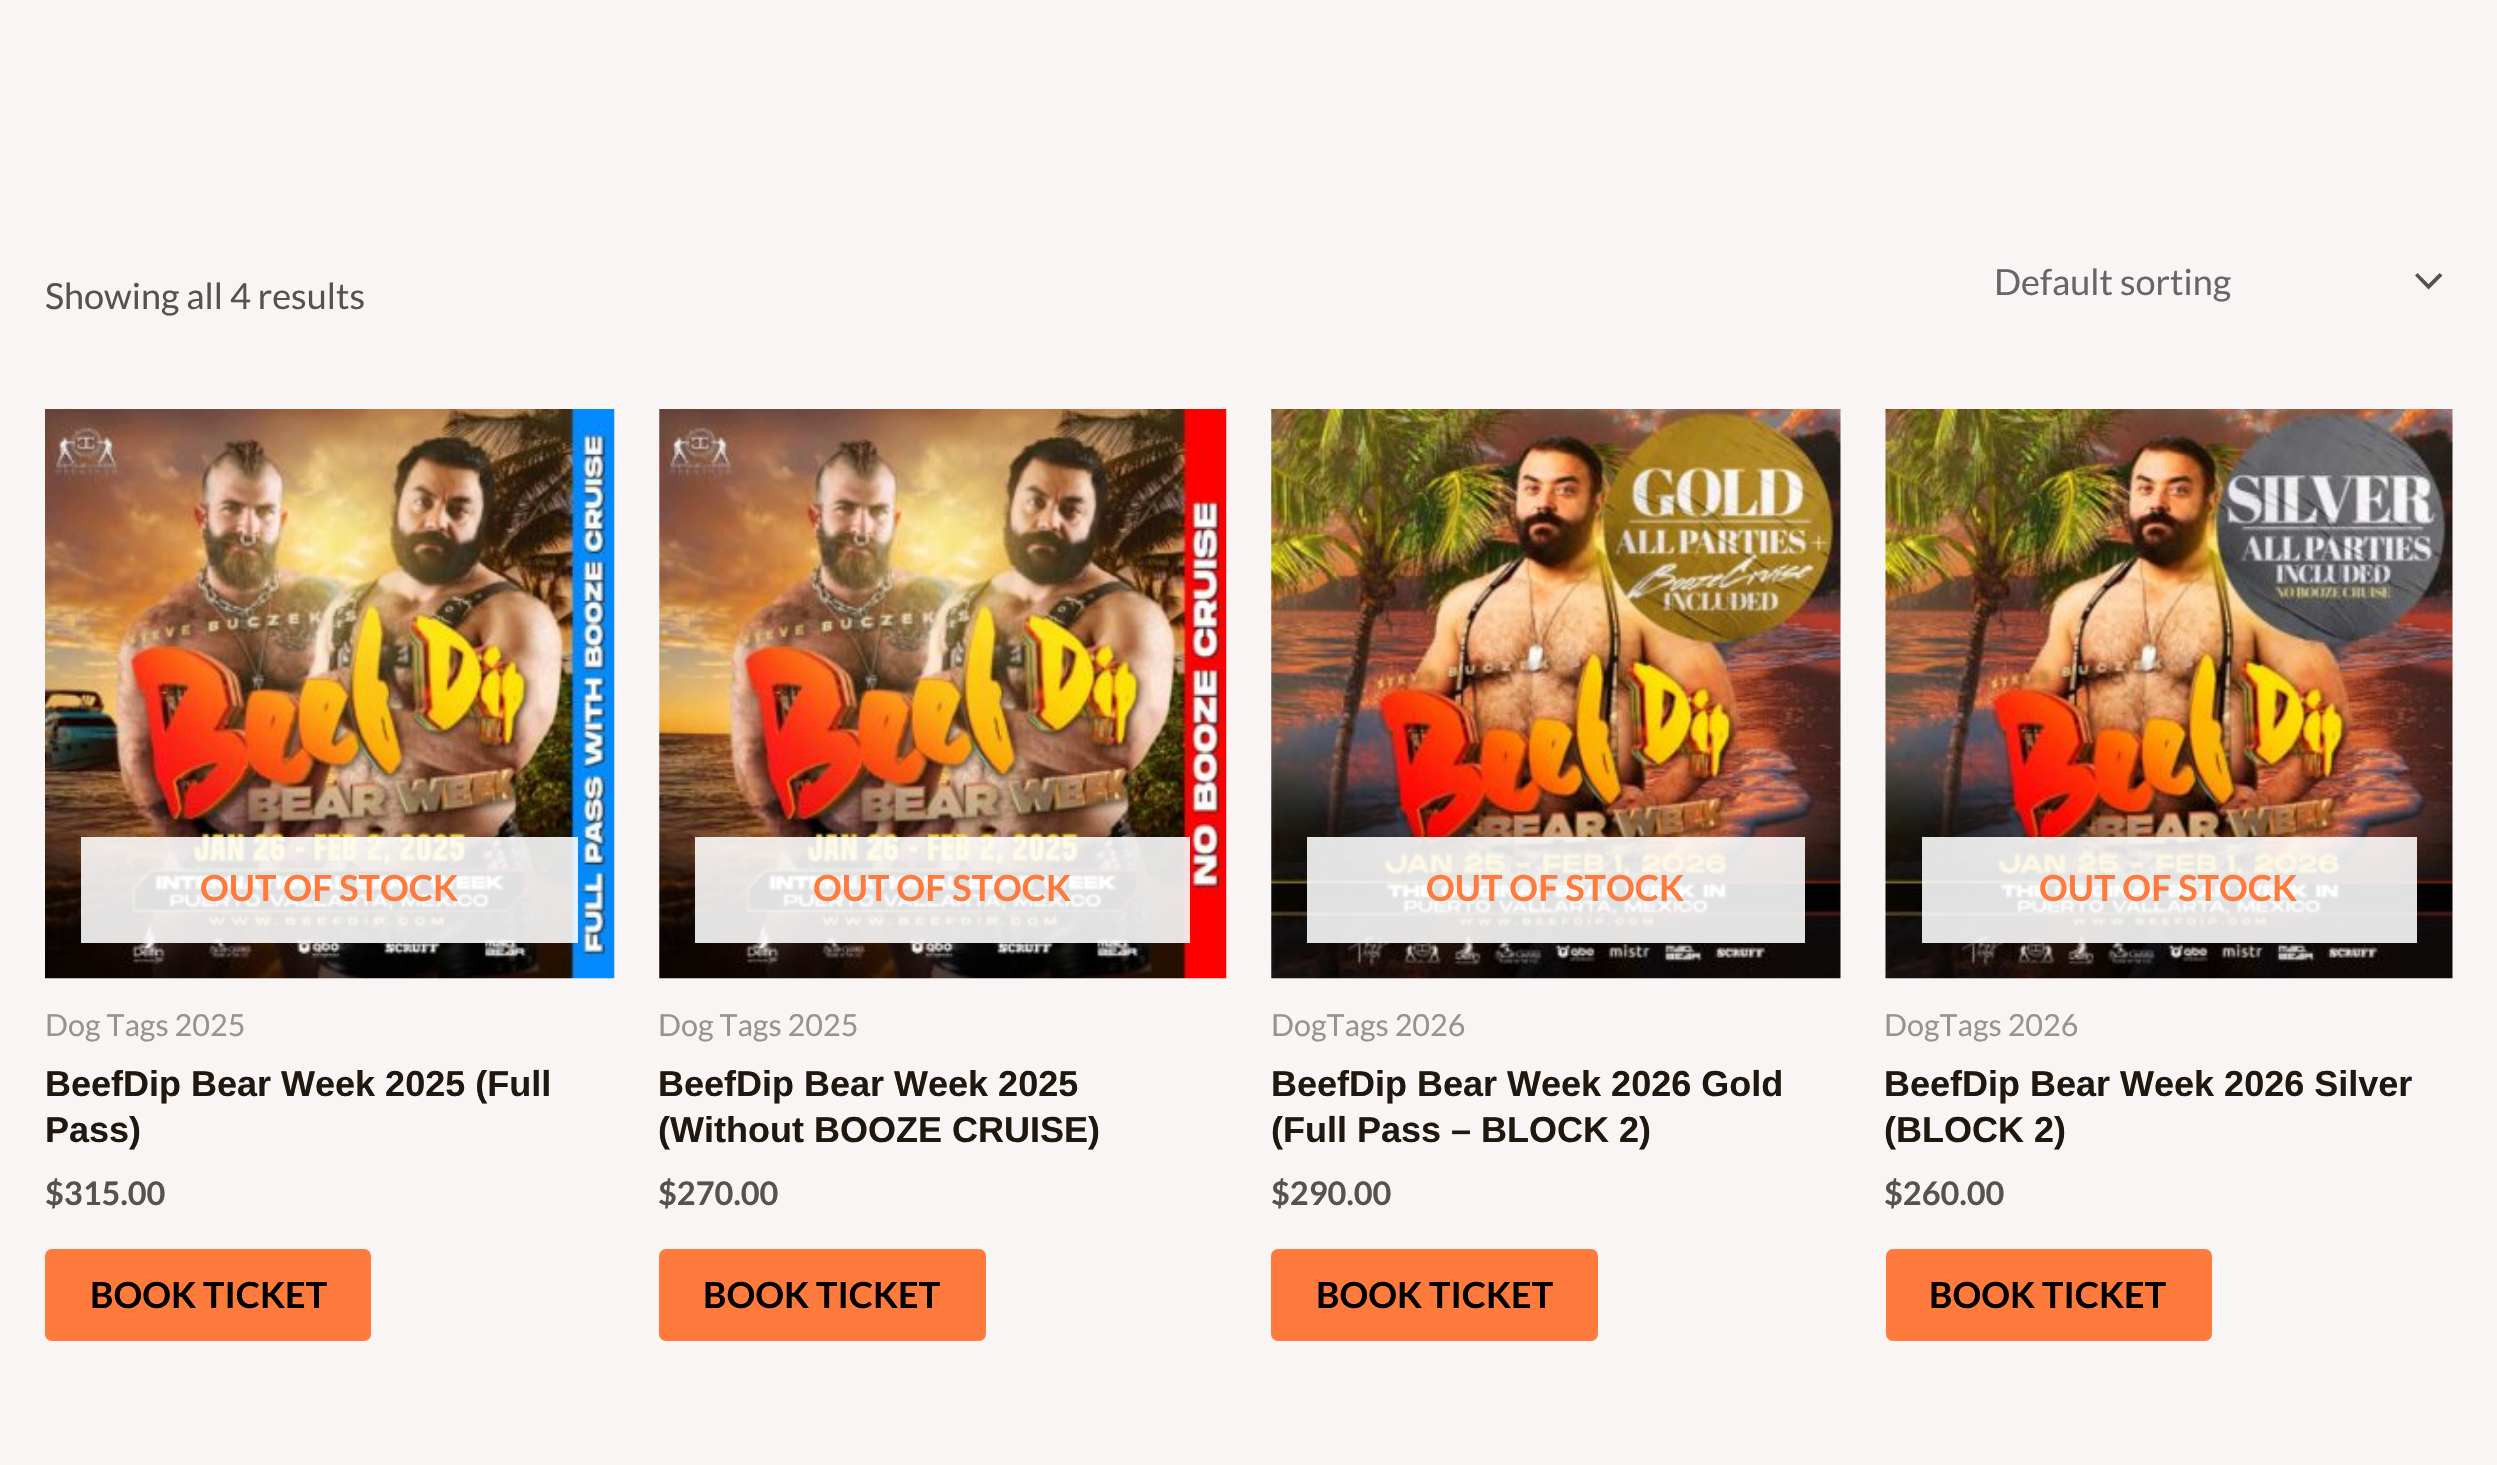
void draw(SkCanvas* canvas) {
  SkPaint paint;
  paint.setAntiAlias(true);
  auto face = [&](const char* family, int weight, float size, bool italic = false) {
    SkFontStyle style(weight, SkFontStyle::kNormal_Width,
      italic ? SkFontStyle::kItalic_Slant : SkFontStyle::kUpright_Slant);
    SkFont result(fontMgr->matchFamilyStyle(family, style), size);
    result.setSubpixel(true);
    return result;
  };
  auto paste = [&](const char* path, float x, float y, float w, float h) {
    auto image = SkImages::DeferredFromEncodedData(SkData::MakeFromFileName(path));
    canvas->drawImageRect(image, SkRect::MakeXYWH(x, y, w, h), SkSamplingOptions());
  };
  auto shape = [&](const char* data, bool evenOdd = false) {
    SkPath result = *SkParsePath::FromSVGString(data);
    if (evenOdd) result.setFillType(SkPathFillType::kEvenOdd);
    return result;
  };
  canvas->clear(0xfff8f5f4);
  paint.setColor(0xff575250);
  canvas->drawPath(shape("M2415 275.5L2428.5 289.5L2442.5 275.5L2439.5 273L2428.5 284L2417.5 273Z"), paint);
  paste("img/1.png", 45, 409, 570, 570);
  paint.setColor(0xe0ffffff);
  canvas->drawRect(SkRect::MakeXYWH(81, 837, 497, 106), paint);
  paint.setColor(0xffff7a3d);
  canvas->drawRoundRect(SkRect::MakeXYWH(45, 1249, 326, 92), 7, 7, paint);
  paste("img/2.png", 659, 409, 568, 570);
  paint.setColor(0xe0ffffff);
  canvas->drawRect(SkRect::MakeXYWH(695, 837, 495, 106), paint);
  paint.setColor(0xffff7a3d);
  canvas->drawRoundRect(SkRect::MakeXYWH(659, 1249, 327, 92), 7, 7, paint);
  paste("img/3.png", 1271, 409, 570, 570);
  paint.setColor(0xe0ffffff);
  canvas->drawRect(SkRect::MakeXYWH(1307, 837, 498, 106), paint);
  paint.setColor(0xffff7a3d);
  canvas->drawRoundRect(SkRect::MakeXYWH(1271, 1249, 327, 92), 7, 7, paint);
  paste("img/4.png", 1885, 409, 568, 570);
  paint.setColor(0xe0ffffff);
  canvas->drawRect(SkRect::MakeXYWH(1922, 837, 495, 106), paint);
  paint.setColor(0xffff7a3d);
  canvas->drawRoundRect(SkRect::MakeXYWH(1886, 1249, 326, 92), 7, 7, paint);
  auto f0 = face("Lato", 400, 36);
  paint.setColor(0xff575250);
  canvas->drawString("Showing all 4 results", 45, 309, f0, paint);
  paint.setColor(0xff666666);
  canvas->drawString("Default sorting", 1994, 295, f0, paint);
  auto f1 = face("Lato", 700, 36);
  paint.setColor(0xffff7a3d);
  canvas->drawString("OUT OF STOCK", 200, 901, f1, paint);
  auto f2 = face("Lato", 400, 30.5f);
  paint.setColor(0xff979392);
  canvas->drawString("Dog Tags 2025", 45, 1036, f2, paint);
  auto f3 = face("Liberation Sans", 700, 36);
  paint.setColor(0xff1e1810);
  canvas->drawString("BeefDip Bear Week 2025 (Full", 45, 1096, f3, paint);
  canvas->drawString("Pass)", 45, 1142, f3, paint);
  auto f4 = face("Lato", 700, 32.5f);
  paint.setColor(0xff575250);
  canvas->drawString("$315.00", 45, 1205, f4, paint);
  paint.setColor(0xff000000);
  canvas->drawString("BOOK TICKET", 90, 1308, f1, paint);
  paint.setColor(0xffff7a3d);
  canvas->drawString("OUT OF STOCK", 813, 901, f1, paint);
  paint.setColor(0xff979392);
  canvas->drawString("Dog Tags 2025", 658, 1036, f2, paint);
  paint.setColor(0xff1e1810);
  canvas->drawString("BeefDip Bear Week 2025", 658, 1096, f3, paint);
  canvas->drawString("(Without BOOZE CRUISE)", 658, 1142, f3, paint);
  paint.setColor(0xff575250);
  canvas->drawString("$270.00", 658, 1205, f4, paint);
  paint.setColor(0xff000000);
  canvas->drawString("BOOK TICKET", 703, 1308, f1, paint);
  paint.setColor(0xffff7a3d);
  canvas->drawString("OUT OF STOCK", 1426, 901, f1, paint);
  paint.setColor(0xff979392);
  canvas->drawString("DogTags 2026", 1271, 1036, f2, paint);
  paint.setColor(0xff1e1810);
  canvas->drawString("BeefDip Bear Week 2026 Gold", 1271, 1096, f3, paint);
  canvas->drawString("(Full Pass – BLOCK 2)", 1271, 1142, f3, paint);
  paint.setColor(0xff575250);
  canvas->drawString("$290.00", 1271, 1205, f4, paint);
  paint.setColor(0xff000000);
  canvas->drawString("BOOK TICKET", 1316, 1308, f1, paint);
  paint.setColor(0xffff7a3d);
  canvas->drawString("OUT OF STOCK", 2039, 901, f1, paint);
  paint.setColor(0xff979392);
  canvas->drawString("DogTags 2026", 1884, 1036, f2, paint);
  paint.setColor(0xff1e1810);
  canvas->drawString("BeefDip Bear Week 2026 Silver", 1884, 1096, f3, paint);
  canvas->drawString("(BLOCK 2)", 1884, 1142, f3, paint);
  paint.setColor(0xff575250);
  canvas->drawString("$260.00", 1884, 1205, f4, paint);
  paint.setColor(0xff000000);
  canvas->drawString("BOOK TICKET", 1929, 1308, f1, paint);
}
